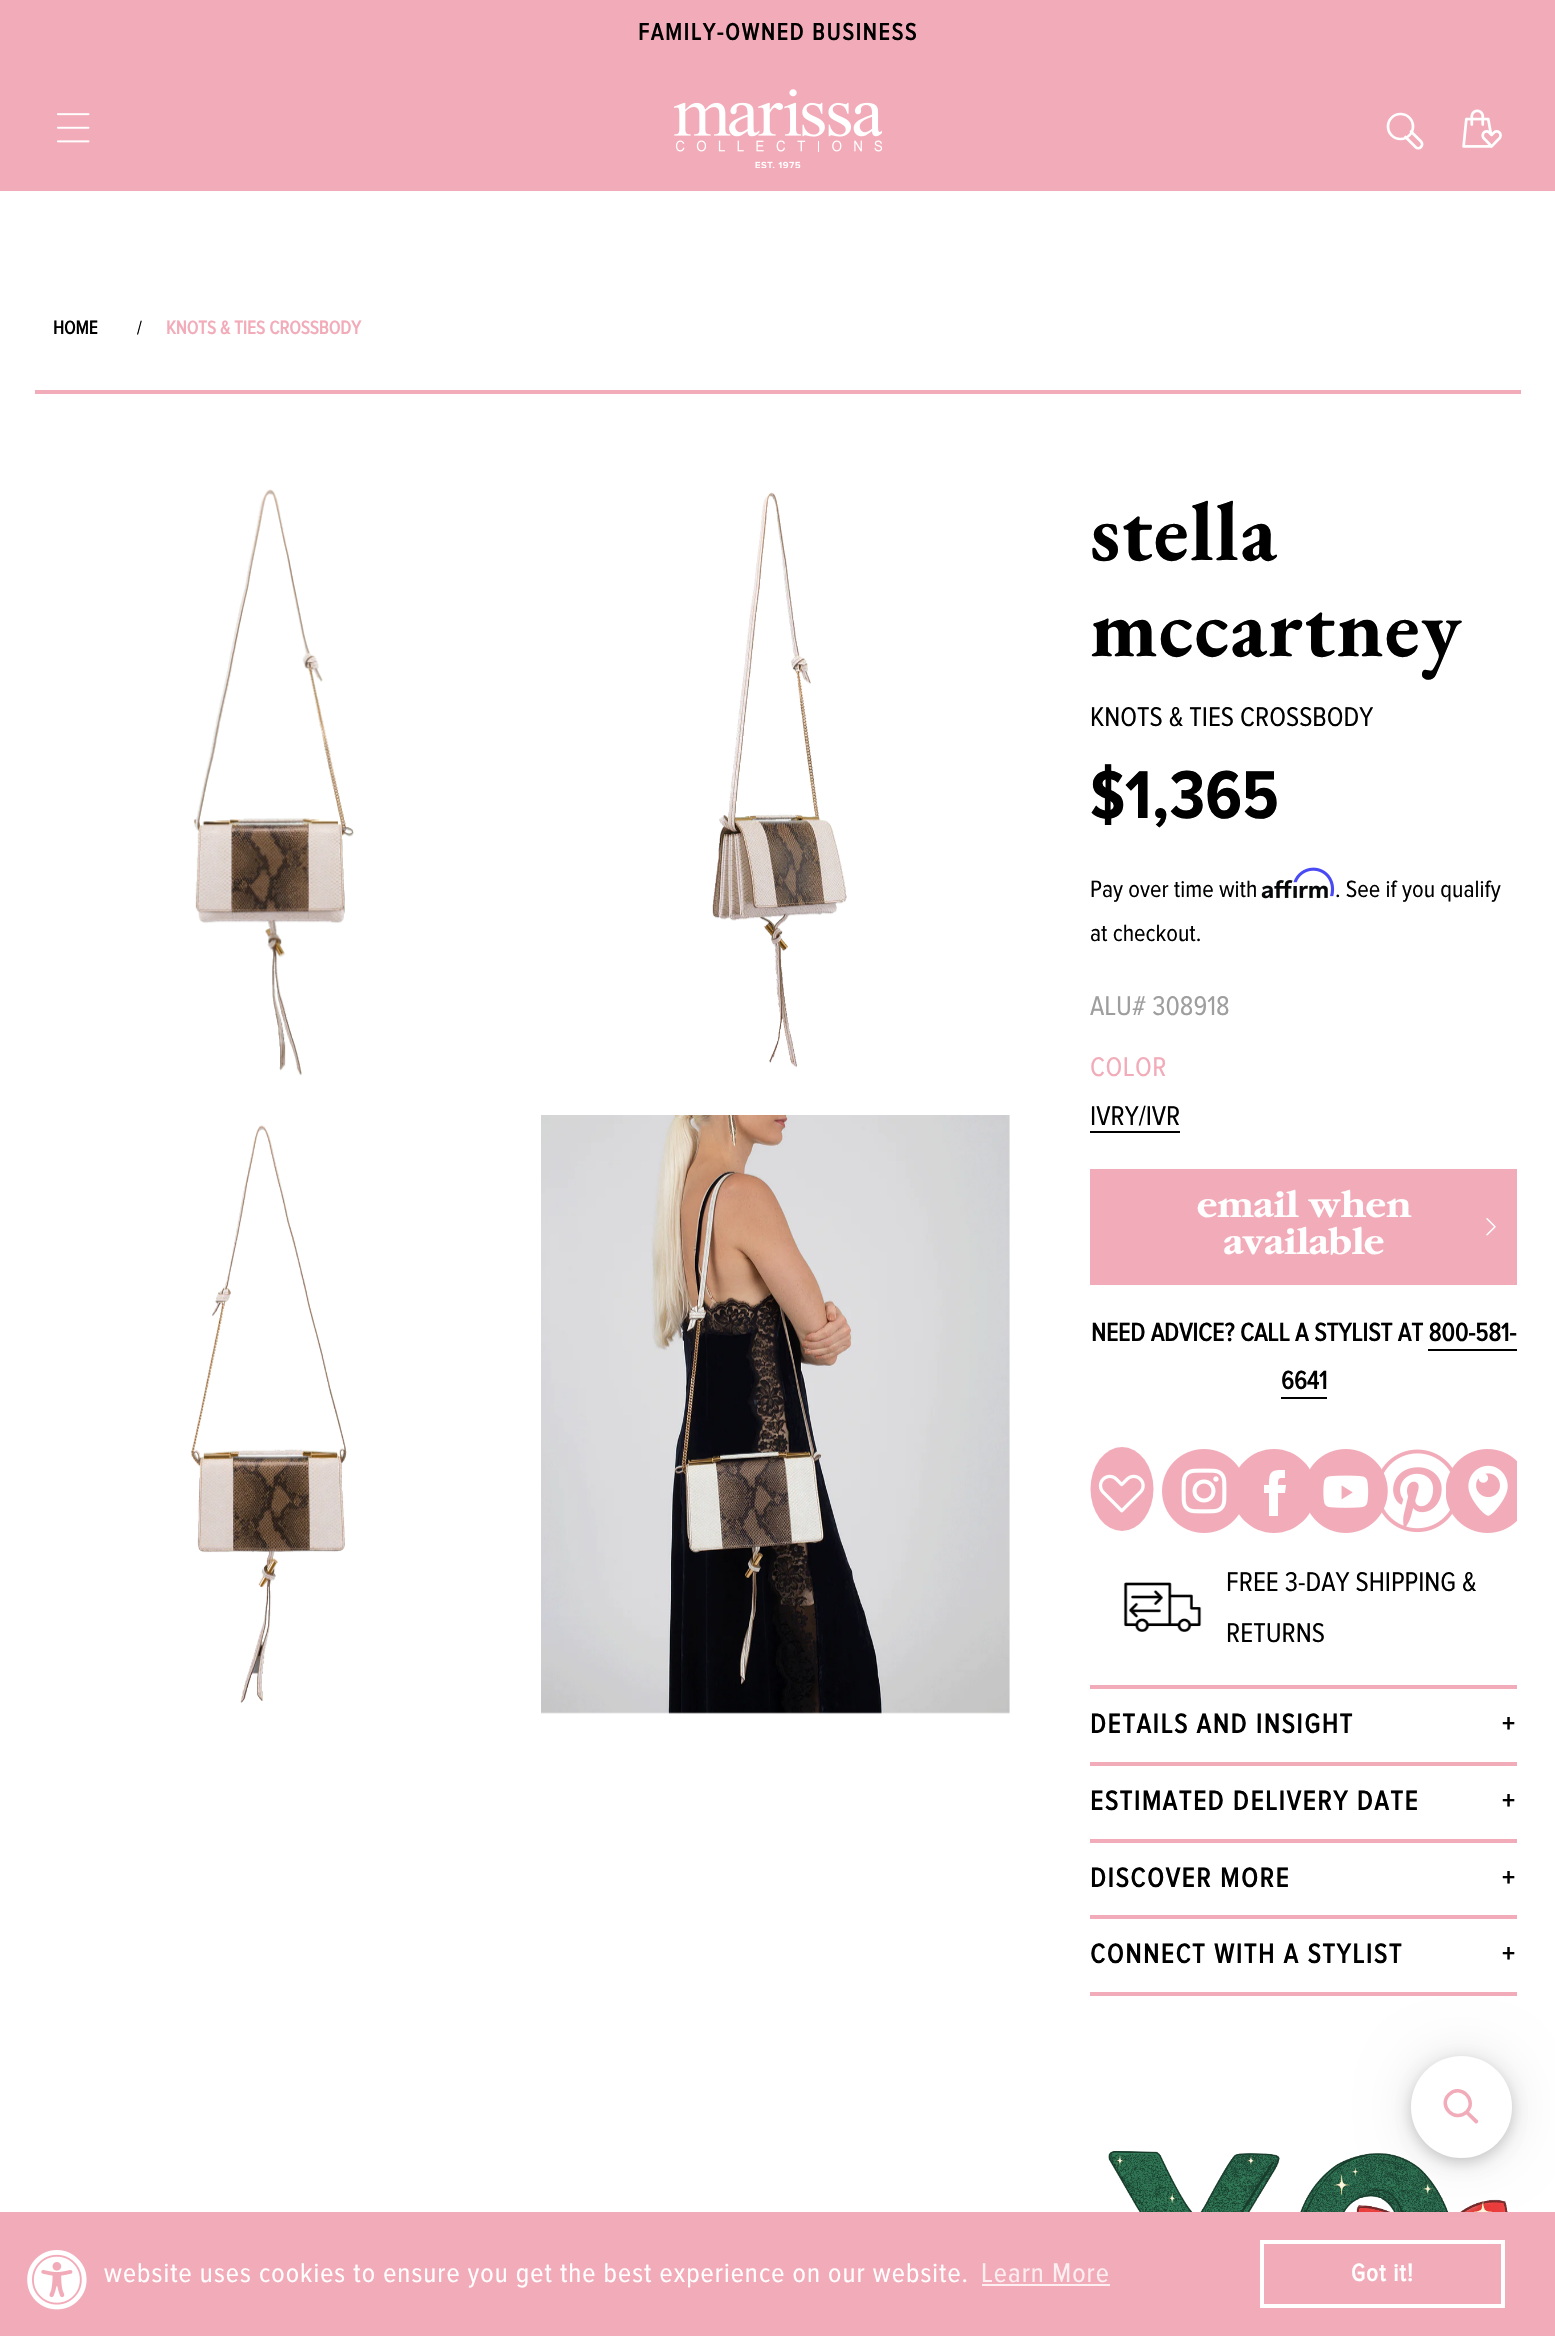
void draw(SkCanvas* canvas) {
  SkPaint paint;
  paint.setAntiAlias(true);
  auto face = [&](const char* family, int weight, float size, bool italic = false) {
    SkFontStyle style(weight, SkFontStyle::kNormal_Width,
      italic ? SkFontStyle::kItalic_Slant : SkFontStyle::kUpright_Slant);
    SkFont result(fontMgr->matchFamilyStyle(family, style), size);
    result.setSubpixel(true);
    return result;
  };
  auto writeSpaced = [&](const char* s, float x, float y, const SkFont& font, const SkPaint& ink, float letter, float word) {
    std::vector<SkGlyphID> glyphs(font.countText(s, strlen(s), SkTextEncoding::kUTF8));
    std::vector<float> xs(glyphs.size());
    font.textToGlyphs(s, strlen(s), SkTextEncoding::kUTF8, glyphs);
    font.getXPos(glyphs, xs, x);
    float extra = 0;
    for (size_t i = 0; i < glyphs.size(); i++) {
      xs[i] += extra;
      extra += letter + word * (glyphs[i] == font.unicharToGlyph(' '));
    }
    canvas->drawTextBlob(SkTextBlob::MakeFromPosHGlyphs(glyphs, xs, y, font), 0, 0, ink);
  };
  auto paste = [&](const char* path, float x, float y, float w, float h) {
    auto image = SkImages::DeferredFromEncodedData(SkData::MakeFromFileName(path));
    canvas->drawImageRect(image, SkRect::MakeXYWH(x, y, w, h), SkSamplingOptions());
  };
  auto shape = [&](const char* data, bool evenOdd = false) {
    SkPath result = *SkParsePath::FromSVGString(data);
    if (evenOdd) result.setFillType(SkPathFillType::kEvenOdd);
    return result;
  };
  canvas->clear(0xffffffff);
  paint.setColor(0xfff2acb9);
  canvas->drawRect(SkRect::MakeXYWH(0, 0, 1555, 191), paint);
  paste("img/1.png", 57, 113, 33, 30);
  paste("img/2.png", 674, 89, 208, 79);
  paint.setStroke(true);
  paint.setStrokeWidth(2.7f);
  paint.setColor(0xffffffff);
  canvas->drawCircle(1400.5f, 126.5f, 12.5f, paint);
  paint.setStrokeCap(SkPaint::kRound_Cap);
  paint.setStrokeJoin(SkPaint::kRound_Join);
  canvas->drawPath(shape("M1405.5 137L1415.5 147C1417 148.5 1419.5 148.5 1421 147C1422.5 145.5 1422.5 143 1421 141.5L1411 131.5"), paint);
  paste("img/3.png", 1462, 109, 40, 39);
  paint.setStroke(false);
  paint.setColor(0xfff2acb9);
  canvas->drawRect(SkRect::MakeXYWH(35, 390, 1486, 4), paint);
  paste("img/4.png", 193, 489, 161, 587);
  paste("img/5.png", 712, 492, 135, 576);
  paste("img/6.png", 191, 1125, 156, 578);
  paste("img/7.png", 541, 1115, 469, 599);
  paste("img/9.png", 1261, 880, 67, 19);
  paste("img/8.png", 1293, 867, 42, 30);
  paint.setColor(0xff000000);
  canvas->drawRect(SkRect::MakeXYWH(1090, 1131, 90, 2), paint);
  paint.setColor(0xfff2acb9);
  canvas->drawRect(SkRect::MakeXYWH(1090, 1169, 427, 116), paint);
  paste("img/10.png", 1486, 1218, 10, 18);
  paint.setColor(0xff000000);
  canvas->drawRect(SkRect::MakeXYWH(1428, 1349, 89, 2), paint);
  canvas->drawRect(SkRect::MakeXYWH(1281, 1397, 46, 2), paint);
  paint.setColor(0xfff2acb9);
  canvas->drawOval(SkRect::MakeXYWH(1090.5f, 1447, 63, 84), paint);
  paste("img/11.png", 1098, 1474, 47, 39);
  paste("img/12.png", 1162, 1449, 77, 84);
  canvas->drawPath(shape("M1274 1449C1251 1449 1232 1468 1232 1491C1232 1514 1251 1533 1274 1533C1297 1533 1316 1514 1316 1491C1316 1468 1297 1449 1274 1449ZM1278 1493V1516H1269V1493H1264V1485H1269C1269 1470 1272 1470 1285 1470V1478C1278 1478 1278 1478 1278 1485H1286L1285 1493Z", true), paint);
  paste("img/13.png", 1310, 1449, 78, 84);
  paste("img/14.png", 1381, 1449, 72, 84);
  paste("img/15.png", 1446, 1449, 71, 84);
  paste("img/16.png", 1123, 1582, 79, 50);
  {
    const struct { float x, y, w, h; SkColor color; } items[] = {
      {1090, 1992, 427, 4, 0xfff2acb9},
      {1090, 1685, 427, 4, 0xfff2acb9},
      {1090, 1762, 427, 4, 0xfff2acb9},
      {1090, 1839, 427, 4, 0xfff2acb9},
      {1090, 1915, 427, 4, 0xfff2acb9},
    };
    for (auto [x, y, w, h, color] : items) {
      paint.setColor(color);
      canvas->drawRect(SkRect::MakeXYWH(x, y, w, h), paint);
    }
  }
  paste("img/17.png", 1108, 2151, 400, 61);
  paint.setColor(0x0d000000);
  paint.setMaskFilter(SkMaskFilter::MakeBlur(kNormal_SkBlurStyle, 7));
  canvas->drawRoundRect(SkRect::MakeXYWH(1411, 2063, 101, 102), 50.5f, 50.5f, paint);
  paint.setMaskFilter(nullptr);
  paint.setColor(0x26000000);
  paint.setMaskFilter(SkMaskFilter::MakeBlur(kNormal_SkBlurStyle, 7));
  canvas->drawRoundRect(SkRect::MakeXYWH(1411, 2060, 101, 101), 50.5f, 50.5f, paint);
  paint.setMaskFilter(nullptr);
  paint.setColor(0xfff2acb9);
  canvas->drawRect(SkRect::MakeXYWH(0, 2212, 1555, 124), paint);
  paint.setColor(0x1a000000);
  paint.setMaskFilter(SkMaskFilter::MakeBlur(kNormal_SkBlurStyle, 26));
  canvas->drawRoundRect(SkRect::MakeXYWH(1411, 2056, 101, 102), 50.5f, 50.5f, paint);
  paint.setMaskFilter(nullptr);
  paint.setColor(0xffffffff);
  canvas->drawRoundRect(SkRect::MakeXYWH(1411, 2056, 101, 102), 50.5f, 50.5f, paint);
  paint.setStroke(true);
  paint.setStrokeWidth(3.5f);
  paint.setStrokeCap(SkPaint::kButt_Cap);
  paint.setStrokeJoin(SkPaint::kMiter_Join);
  paint.setColor(0xfff2acb9);
  canvas->drawPath(shape("M1449 2094.5C1460.5 2083 1478 2100.5 1466.5 2112C1455 2123 1437.5 2106 1449 2094.5Z"), paint);
  paint.setStroke(false);
  canvas->drawPath(shape("M1465 2113L1467.5 2110.5L1478 2120.5C1479 2122.5 1476.5 2124.5 1475 2123Z"), paint);
  paste("img/18.png", 27, 2250, 60, 60);
  paint.setColor(0xfffceef1);
  canvas->drawRect(SkRect::MakeXYWH(982, 2284, 128, 2), paint);
  paint.setStroke(true);
  paint.setStrokeWidth(4);
  paint.setColor(0xffffffff);
  canvas->drawRect(SkRect::MakeXYWH(1262, 2242, 241, 64), paint);
  auto f0 = face("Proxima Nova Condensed", 700, 24.5f);
  paint.setStroke(false);
  paint.setColor(0xff000000);
  writeSpaced("FAMILY-OWNED BUSINESS", 638, 40, f0, paint, 1.75f, 0);
  auto f1 = face("Proxima Nova Condensed", 700, 19.25f);
  canvas->drawString("HOME", 53, 334, f1, paint);
  auto f2 = face("Proxima Nova Condensed", 400, 19.25f);
  writeSpaced("/", 137, 334, f2, paint, 1.05f, 0);
  paint.setColor(0xfff2acb9);
  canvas->drawString("KNOTS & TIES CROSSBODY", 166, 334, f1, paint);
  auto f3 = face("EB Garamond", 700, 84);
  paint.setColor(0xff000000);
  writeSpaced("stella", 1090, 560, f3, paint, 1.05f, 0);
  writeSpaced("mccartney", 1090, 656, f3, paint, 1.05f, 0);
  auto f4 = face("Proxima Nova Condensed", 400, 28);
  canvas->drawString("KNOTS & TIES CROSSBODY", 1090, 726, f4, paint);
  auto f5 = face("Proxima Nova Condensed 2", 700, 70);
  canvas->drawString("$1,365", 1090, 818, f5, paint);
  auto f6 = face("Proxima Nova Condensed", 400, 24.5f);
  {
    const struct { const char* s; float x, y; } items[] = {
      {"Pay over time with", 1090, 897},
      {". See if you qualify", 1335, 897},
      {"at checkout.", 1090, 941},
    };
    for (auto [s, x, y] : items) {
      canvas->drawString(s, x, y, f6, paint);
    }
  }
  paint.setColor(0xff9e9e9e);
  canvas->drawString("ALU# 308918", 1090, 1015, f4, paint);
  paint.setColor(0xfff2acb9);
  writeSpaced("COLOR", 1090, 1076, f4, paint, 0.5f, 0);
  paint.setColor(0xff000000);
  canvas->drawString("IVRY/IVR", 1090, 1125, f4, paint);
  auto f7 = face("Garamond", 700, 38.5f);
  paint.setColor(0xffffffff);
  canvas->drawString("email when", 1197, 1217, f7, paint);
  canvas->drawString("available", 1223, 1254, f7, paint);
  auto f8 = face("Proxima Nova Condensed", 700, 26.25f);
  paint.setColor(0xff000000);
  canvas->drawString("NEED ADVICE? CALL A STYLIST AT 800-581-", 1091, 1341, f8, paint);
  canvas->drawString("6641", 1281, 1389, f8, paint);
  canvas->drawString("FREE 3-DAY SHIPPING &", 1226, 1591, f4, paint);
  canvas->drawString("RETURNS", 1226, 1642, f4, paint);
  auto f9 = face("Proxima Nova Condensed", 700, 28);
  {
    const struct { const char* s; float x, y; } items[] = {
      {"DETAILS AND INSIGHT", 1090, 1733},
      {"+", 1502, 1733},
      {"ESTIMATED DELIVERY DATE", 1090, 1810},
      {"+", 1502, 1810},
      {"DISCOVER MORE", 1090, 1887},
      {"+", 1502, 1887},
      {"CONNECT WITH A STYLIST", 1090, 1963},
      {"+", 1502, 1963},
    };
    for (auto [s, x, y] : items) {
      writeSpaced(s, x, y, f9, paint, 1.75f, 0);
    }
  }
  paint.setColor(0xffffffff);
  writeSpaced("website uses cookies to ensure you get the best experience on our website.", 104, 2282, f4, paint, 1.05f, 0);
  paint.setColor(0xfffceef1);
  writeSpaced("Learn More", 981, 2282, f4, paint, 1.05f, 0);
  auto f10 = face("Proxima Nova Condensed", 700, 25);
  paint.setColor(0xffffffff);
  writeSpaced("Got it!", 1351, 2281, f10, paint, 1.05f, 0);
}
